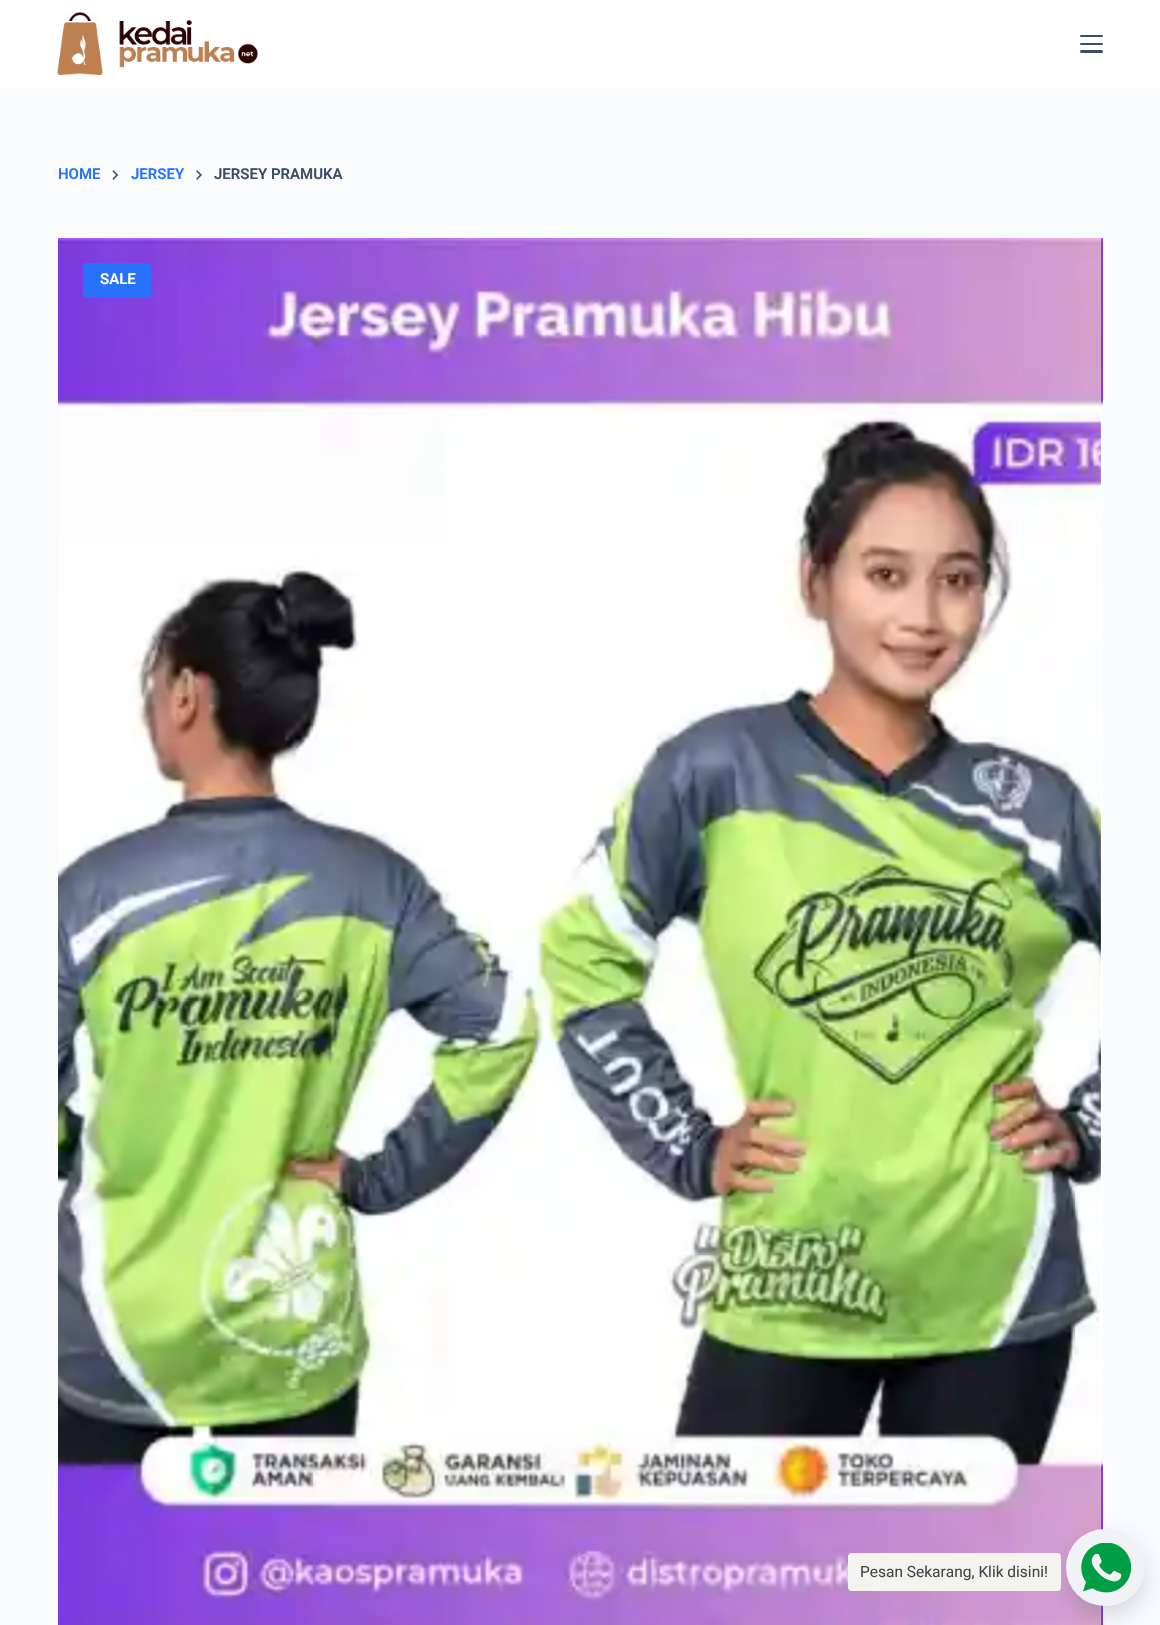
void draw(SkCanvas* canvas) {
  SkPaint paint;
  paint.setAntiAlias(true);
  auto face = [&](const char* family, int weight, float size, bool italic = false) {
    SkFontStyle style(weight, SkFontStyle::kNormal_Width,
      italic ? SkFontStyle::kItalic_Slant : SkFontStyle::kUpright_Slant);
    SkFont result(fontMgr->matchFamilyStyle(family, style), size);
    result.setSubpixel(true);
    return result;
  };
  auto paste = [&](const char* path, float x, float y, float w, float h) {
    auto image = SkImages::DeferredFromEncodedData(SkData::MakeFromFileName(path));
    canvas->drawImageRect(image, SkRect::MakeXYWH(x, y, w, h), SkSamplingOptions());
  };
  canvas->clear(0xfffafbfc);
  paint.setColor(0xffffffff);
  canvas->drawRect(SkRect::MakeXYWH(0, 0, 1160, 88), paint);
  paste("img/1.png", 57, 12, 201, 63);
  paint.setColor(0xff3a4f66);
  canvas->drawRoundRect(SkRect::MakeXYWH(1080, 35, 23, 2), 1, 1, paint);
  canvas->drawRoundRect(SkRect::MakeXYWH(1080, 43, 23, 2), 1, 1, paint);
  canvas->drawRoundRect(SkRect::MakeXYWH(1080, 50, 23, 3), 1.5f, 1.5f, paint);
  paste("img/2.png", 112, 170, 7, 10);
  paste("img/3.png", 196, 170, 6, 10);
  paste("img/4.png", 58, 238, 1043, 1387);
  paste("img/5.png", 1101, 238, 2, 1387);
  paint.setColor(0xff2872fa);
  canvas->drawRoundRect(SkRect::MakeXYWH(83, 263, 68, 35), 4, 4, paint);
  paint.setColor(0x4d2d3e4f);
  paint.setMaskFilter(SkMaskFilter::MakeBlur(kNormal_SkBlurStyle, 15.5f));
  canvas->drawRoundRect(SkRect::MakeXYWH(1073, 1545, 66, 65), 32.5f, 32.5f, paint);
  paint.setMaskFilter(nullptr);
  paint.setColor(0xfff0f2f5);
  canvas->drawRoundRect(SkRect::MakeXYWH(1066, 1529, 79, 77), 38.5f, 38.5f, paint);
  paint.setColor(0xfff5f3ed);
  canvas->drawRoundRect(SkRect::MakeXYWH(848, 1553, 213, 38), 4, 4, paint);
  paste("img/6.png", 1081, 1543, 50, 50);
  auto f0 = face("Roboto", 600, 15);
  paint.setColor(0xff2872fa);
  canvas->drawString("HOME", 58, 179, f0, paint);
  canvas->drawString("JERSEY", 131, 179, f0, paint);
  paint.setColor(0xff3a4f66);
  canvas->drawString("JERSEY PRAMUKA", 214, 179, f0, paint);
  paint.setColor(0xffffffff);
  canvas->drawString("SALE", 100, 284, f0, paint);
  auto f1 = face("Roboto", 400, 15.5f);
  paint.setColor(0xff43474e);
  canvas->drawString("Pesan Sekarang, Klik disini!", 860, 1577, f1, paint);
}
